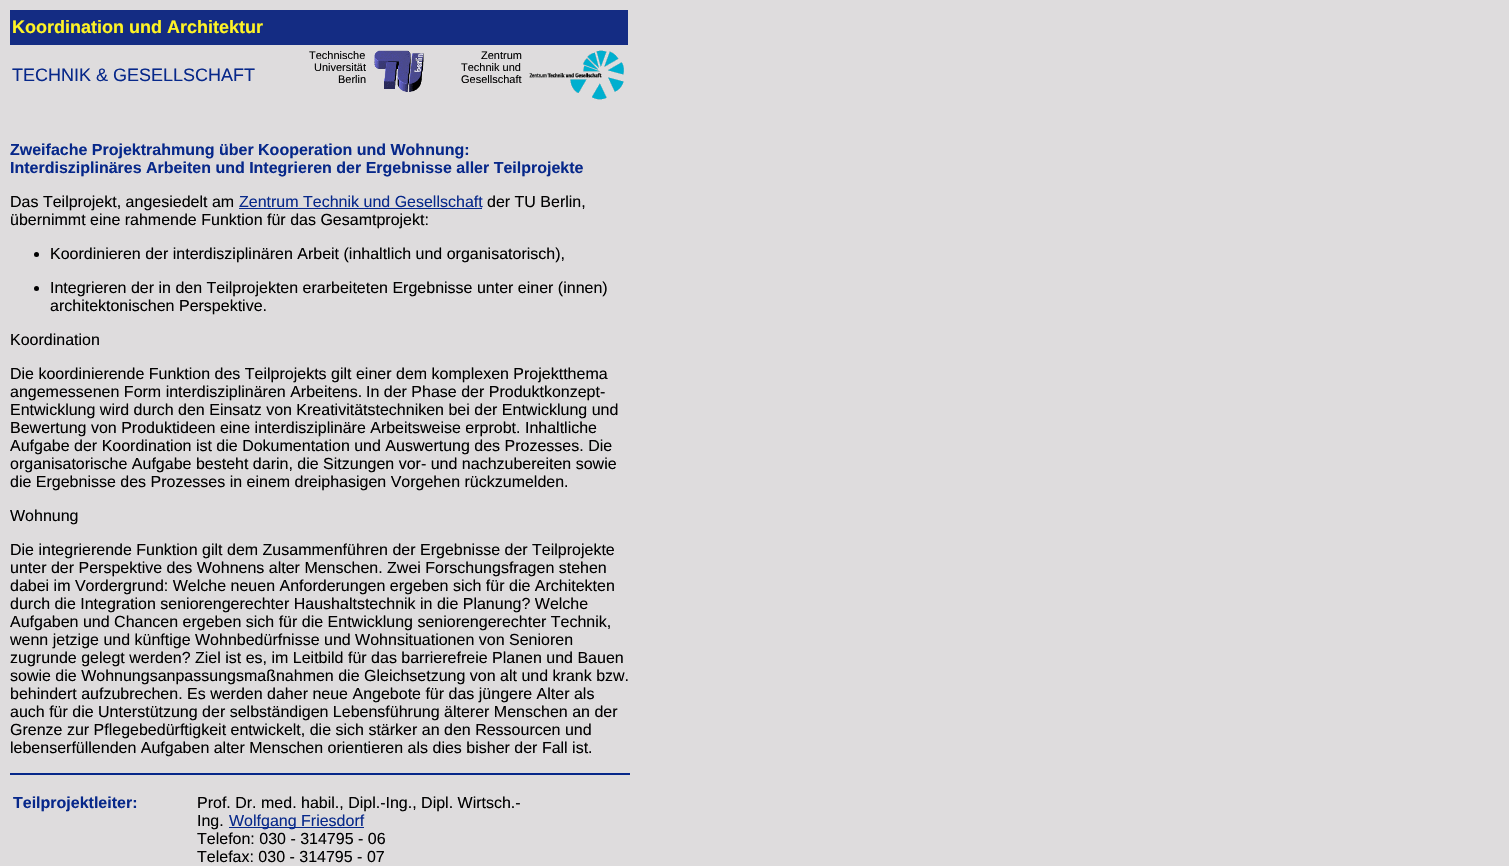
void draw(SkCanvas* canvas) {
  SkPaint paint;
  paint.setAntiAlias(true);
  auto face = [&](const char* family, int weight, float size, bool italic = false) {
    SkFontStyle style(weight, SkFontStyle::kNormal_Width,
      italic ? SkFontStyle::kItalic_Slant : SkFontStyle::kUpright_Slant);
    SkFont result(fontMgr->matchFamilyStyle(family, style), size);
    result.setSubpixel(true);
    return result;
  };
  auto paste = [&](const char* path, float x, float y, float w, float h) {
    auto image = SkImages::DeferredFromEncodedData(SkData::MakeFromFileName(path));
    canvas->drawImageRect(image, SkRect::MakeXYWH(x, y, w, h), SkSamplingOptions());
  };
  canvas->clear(0xffdedcdd);
  paint.setColor(0xff142c83);
  canvas->drawRect(SkRect::MakeXYWH(10, 10, 618, 35), paint);
  paste("img/1.png", 374, 50, 50, 42);
  paste("img/2.png", 529, 50, 95, 50);
  paint.setColor(0xff07288a);
  canvas->drawRect(SkRect::MakeXYWH(239, 208, 243, 1), paint);
  paint.setColor(0xff000000);
  canvas->drawCircle(36.5f, 254.5f, 2.5f, paint);
  canvas->drawCircle(36.5f, 288.5f, 2.5f, paint);
  paint.setColor(0xff062789);
  canvas->drawRect(SkRect::MakeXYWH(10, 773, 620, 2), paint);
  paint.setColor(0xff07288a);
  canvas->drawRect(SkRect::MakeXYWH(229, 827, 135, 1), paint);
  auto f0 = face("Liberation Sans", 700, 18);
  paint.setColor(0xfffff425);
  canvas->drawString("Koordination und Architektur", 12, 33, f0, paint);
  auto f1 = face("Liberation Sans", 400, 18);
  paint.setColor(0xff07288a);
  canvas->drawString("TECHNIK & GESELLSCHAFT", 12, 81, f1, paint);
  auto f2 = face("Liberation Sans", 400, 11);
  paint.setColor(0xff000000);
  {
    const struct { const char* s; float x, y; } items[] = {
      {"Technische", 309, 59},
      {"Universität", 314, 71},
      {"Berlin", 338, 83},
      {"Zentrum", 481, 59},
      {"Technik und", 461, 71},
      {"Gesellschaft", 461, 83},
    };
    for (auto [s, x, y] : items) {
      canvas->drawString(s, x, y, f2, paint);
    }
  }
  auto f3 = face("Liberation Sans", 700, 16);
  paint.setColor(0xff07288a);
  canvas->drawString("Zweifache Projektrahmung über Kooperation und Wohnung:", 10, 155, f3, paint);
  canvas->drawString("Interdisziplinäres Arbeiten und Integrieren der Ergebnisse aller Teilprojekte", 10, 173, f3, paint);
  auto f4 = face("Liberation Sans", 400, 16);
  paint.setColor(0xff000000);
  canvas->drawString("Das Teilprojekt, angesiedelt am", 10, 207, f4, paint);
  paint.setColor(0xff07288a);
  canvas->drawString("Zentrum Technik und Gesellschaft", 239, 207, f4, paint);
  paint.setColor(0xff000000);
  {
    const struct { const char* s; float x, y; } items[] = {
      {"der TU Berlin,", 487, 207},
      {"übernimmt eine rahmende Funktion für das Gesamtprojekt:", 10, 225},
      {"Koordinieren der interdisziplinären Arbeit (inhaltlich und organisatorisch),", 50, 259},
      {"Integrieren der in den Teilprojekten erarbeiteten Ergebnisse unter einer (innen)", 50, 293},
      {"architektonischen Perspektive.", 50, 311},
      {"Koordination", 10, 345},
      {"Die koordinierende Funktion des Teilprojekts gilt einer dem komplexen Projektthema", 10, 379},
      {"angemessenen Form interdisziplinären Arbeitens.", 10, 397},
      {"In der Phase der Produktkonzept-", 366, 397},
      {"Entwicklung wird durch den Einsatz von Kreativitätstechniken bei der Entwicklung und", 10, 415},
      {"Bewertung von Produktideen eine interdisziplinäre Arbeitsweise erprobt. Inhaltliche", 10, 433},
      {"Aufgabe der Koordination ist die Dokumentation und Auswertung des Prozesses. Die", 10, 451},
      {"organisatorische Aufgabe besteht darin, die Sitzungen vor- und nachzubereiten sowie", 10, 469},
      {"die Ergebnisse des Prozesses in einem dreiphasigen Vorgehen rückzumelden.", 10, 487},
      {"Wohnung", 10, 521},
      {"Die integrierende Funktion gilt dem Zusammenführen der Ergebnisse der Teilprojekte", 10, 555},
      {"unter der Perspektive des Wohnens alter Menschen. Zwei Forschungsfragen stehen", 10, 573},
      {"dabei im Vordergrund: Welche neuen Anforderungen ergeben sich für die Architekten", 10, 591},
      {"durch die Integration seniorengerechter Haushaltstechnik in die Planung? Welche", 10, 609},
      {"Aufgaben und Chancen ergeben sich für die Entwicklung seniorengerechter Technik,", 10, 627},
      {"wenn jetzige und künftige Wohnbedürfnisse und Wohnsituationen von Senioren", 10, 645},
      {"zugrunde gelegt werden? Ziel ist es, im Leitbild für das barrierefreie Planen und Bauen", 10, 663},
      {"sowie die Wohnungsanpassungsmaßnahmen die Gleichsetzung von alt und krank bzw.", 10, 681},
      {"behindert aufzubrechen. Es werden daher neue Angebote für das jüngere Alter als", 10, 699},
      {"auch für die Unterstützung der selbständigen Lebensführung älterer Menschen an der", 10, 717},
      {"Grenze zur Pflegebedürftigkeit entwickelt, die sich stärker an den Ressourcen und", 10, 735},
      {"lebenserfüllenden Aufgaben alter Menschen orientieren als dies bisher der Fall ist.", 10, 753},
    };
    for (auto [s, x, y] : items) {
      canvas->drawString(s, x, y, f4, paint);
    }
  }
  paint.setColor(0xff07288a);
  canvas->drawString("Teilprojektleiter:", 13, 808, f3, paint);
  paint.setColor(0xff000000);
  canvas->drawString("Prof. Dr. med. habil., Dipl.-Ing., Dipl. Wirtsch.-", 197, 808, f4, paint);
  canvas->drawString("Ing.", 197, 826, f4, paint);
  paint.setColor(0xff07288a);
  canvas->drawString("Wolfgang Friesdorf", 229, 826, f4, paint);
  paint.setColor(0xff000000);
  canvas->drawString("Telefon: 030 - 314795 - 06", 197, 844, f4, paint);
  canvas->drawString("Telefax: 030 - 314795 - 07", 197, 862, f4, paint);
}
